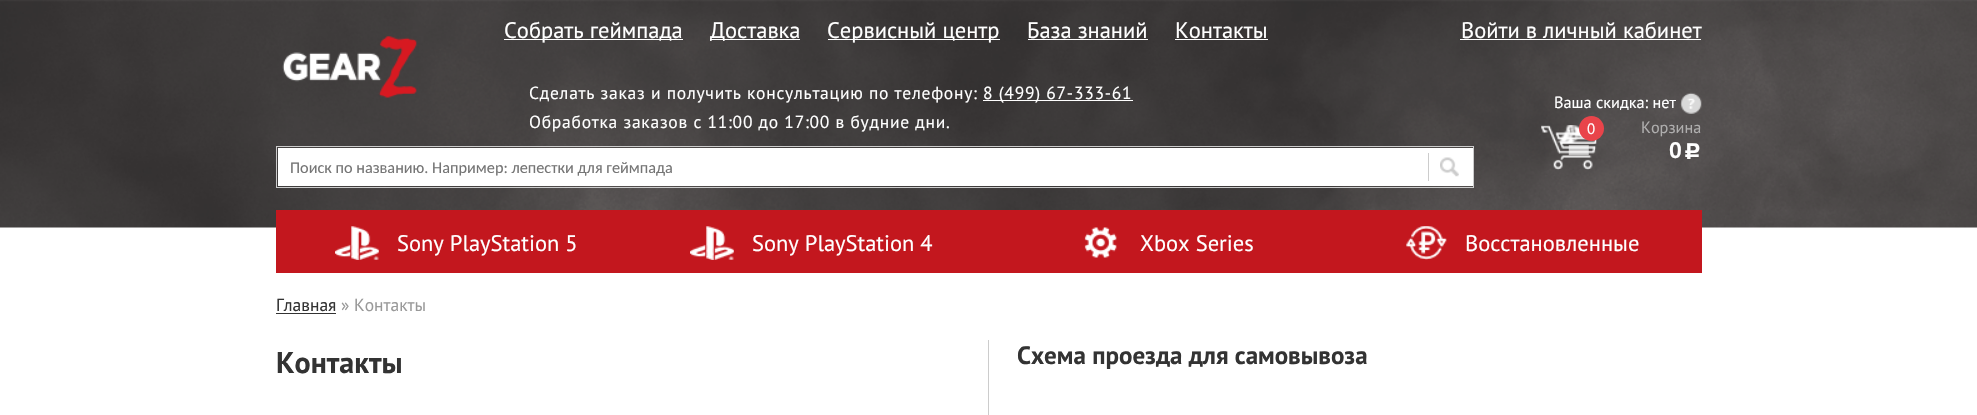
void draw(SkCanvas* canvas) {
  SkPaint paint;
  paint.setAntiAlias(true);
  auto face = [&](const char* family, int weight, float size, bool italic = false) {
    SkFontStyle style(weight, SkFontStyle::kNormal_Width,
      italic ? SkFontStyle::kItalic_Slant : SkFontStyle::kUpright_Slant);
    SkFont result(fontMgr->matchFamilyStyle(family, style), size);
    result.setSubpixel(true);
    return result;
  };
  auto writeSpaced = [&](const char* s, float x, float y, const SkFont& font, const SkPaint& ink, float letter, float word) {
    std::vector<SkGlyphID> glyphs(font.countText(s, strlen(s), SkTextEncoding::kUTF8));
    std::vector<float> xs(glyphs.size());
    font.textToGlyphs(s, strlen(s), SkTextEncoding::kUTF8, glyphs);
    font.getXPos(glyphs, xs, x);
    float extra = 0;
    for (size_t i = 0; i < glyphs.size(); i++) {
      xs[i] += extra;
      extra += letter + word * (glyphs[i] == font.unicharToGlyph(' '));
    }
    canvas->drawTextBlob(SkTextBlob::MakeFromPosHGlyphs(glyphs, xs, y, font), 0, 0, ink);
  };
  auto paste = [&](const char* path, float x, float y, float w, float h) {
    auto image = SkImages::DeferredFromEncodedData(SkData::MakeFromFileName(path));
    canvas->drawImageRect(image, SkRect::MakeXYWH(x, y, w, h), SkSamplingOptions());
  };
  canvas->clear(0xffffffff);
  paste("img/1.png", 0, 0, 1977, 228);
  {
    const struct { float x, y, w, h; SkColor color; } items[] = {
      {504, 39, 179, 1, 0xffffffff},
      {710, 39, 90, 1, 0xffffffff},
      {828, 39, 172, 1, 0xffffffff},
      {1028, 39, 120, 1, 0xffffffff},
      {1175, 39, 93, 1, 0xffffffff},
      {1460, 39, 241, 1, 0xffffffff},
    };
    for (auto [x, y, w, h, color] : items) {
      paint.setColor(color);
      canvas->drawRect(SkRect::MakeXYWH(x, y, w, h), paint);
    }
  }
  paste("img/2.png", 282, 36, 135, 62);
  canvas->drawRect(SkRect::MakeXYWH(983, 100, 150, 1), paint);
  paste("img/3.png", 1680, 92, 22, 22);
  paste("img/4.png", 1541, 125, 56, 45);
  paint.setColor(0xffe9444a);
  canvas->drawCircle(1591.5f, 128.5f, 12.5f, paint);
  paint.setStroke(true);
  paint.setStrokeWidth(1);
  paint.setColor(0xffcccccc);
  canvas->drawRect(SkRect::MakeXYWH(276.5f, 146.5f, 1197, 41), paint);
  paint.setStroke(false);
  paint.setColor(0xffffffff);
  canvas->drawRect(SkRect::MakeXYWH(278, 148, 1195, 38), paint);
  paste("img/5.png", 1440, 157, 19, 20);
  paint.setColor(0xffcccccc);
  canvas->drawRect(SkRect::MakeXYWH(1428, 153, 1, 28), paint);
  paint.setColor(0xffc3171e);
  canvas->drawRect(SkRect::MakeXYWH(276, 210, 1426, 63), paint);
  paste("img/6.png", 335, 226, 44, 34);
  paste("img/7.png", 690, 226, 44, 34);
  paste("img/8.png", 1084, 227, 33, 31);
  paste("img/9.png", 1406, 226, 41, 34);
  paint.setColor(0xff333333);
  canvas->drawRect(SkRect::MakeXYWH(276, 313, 60, 1), paint);
  paint.setColor(0xffcccccc);
  canvas->drawRect(SkRect::MakeXYWH(988, 340, 1, 75), paint);
  auto f0 = face("PT Sans", 400, 22.5f);
  paint.setColor(0xffffffff);
  {
    const struct { const char* s; float x, y; } items[] = {
      {"Собрать геймпада", 504, 38},
      {"Доставка", 710, 38},
      {"Сервисный центр", 827, 38},
      {"База знаний", 1027, 38},
      {"Контакты", 1175, 38},
      {"Войти в личный кабинет", 1461, 38},
    };
    for (auto [s, x, y] : items) {
      canvas->drawString(s, x, y, f0, paint);
    }
  }
  auto f1 = face("PT Sans", 400, 17.5f);
  {
    const struct { const char* s; float x, y; } items[] = {
      {"Сделать заказ и получить консультацию по телефону:", 529, 99},
      {"8 (499) 67-333-61", 983, 99},
      {"Обработка заказов с 11:00 до 17:00 в будние дни.", 529, 128},
    };
    for (auto [s, x, y] : items) {
      writeSpaced(s, x, y, f1, paint, 0.75f, 0);
    }
  }
  auto f2 = face("PT Sans", 400, 16.25f);
  canvas->drawString("Ваша скидка: нет", 1554, 108, f2, paint);
  auto f3 = face("PT Sans", 400, 15);
  canvas->drawString("0", 1587, 134, f3, paint);
  paint.setColor(0xffafaeae);
  canvas->drawString("Корзина", 1641, 133, f2, paint);
  auto f4 = face("PT Sans", 700, 22.5f);
  paint.setColor(0xffffffff);
  canvas->drawString("0", 1669, 158, f4, paint);
  auto f5 = face("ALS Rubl", 400, 22.5f);
  canvas->drawString("c", 1682, 159, f5, paint);
  auto f6 = face("Carlito", 400, 16.25f);
  paint.setColor(0xff757575);
  canvas->drawString("Поиск по названию. Например: лепестки для геймпада", 290, 173, f6, paint);
  paint.setColor(0xffffffff);
  {
    const struct { const char* s; float x, y; } items[] = {
      {"Sony PlayStation 5", 397, 251},
      {"Sony PlayStation 4", 752, 251},
      {"Xbox Series", 1140, 251},
      {"Восстановленные", 1465, 251},
    };
    for (auto [s, x, y] : items) {
      canvas->drawString(s, x, y, f0, paint);
    }
  }
  paint.setColor(0xff333333);
  canvas->drawString("Главная", 276, 311, f1, paint);
  paint.setColor(0xff999999);
  canvas->drawString("» Контакты", 341, 311, f1, paint);
  auto f7 = face("PT Sans", 700, 30);
  paint.setColor(0xff333333);
  canvas->drawString("Контакты", 276, 373, f7, paint);
  auto f8 = face("PT Sans", 700, 25);
  canvas->drawString("Схема проезда для самовывоза", 1017, 364, f8, paint);
}
